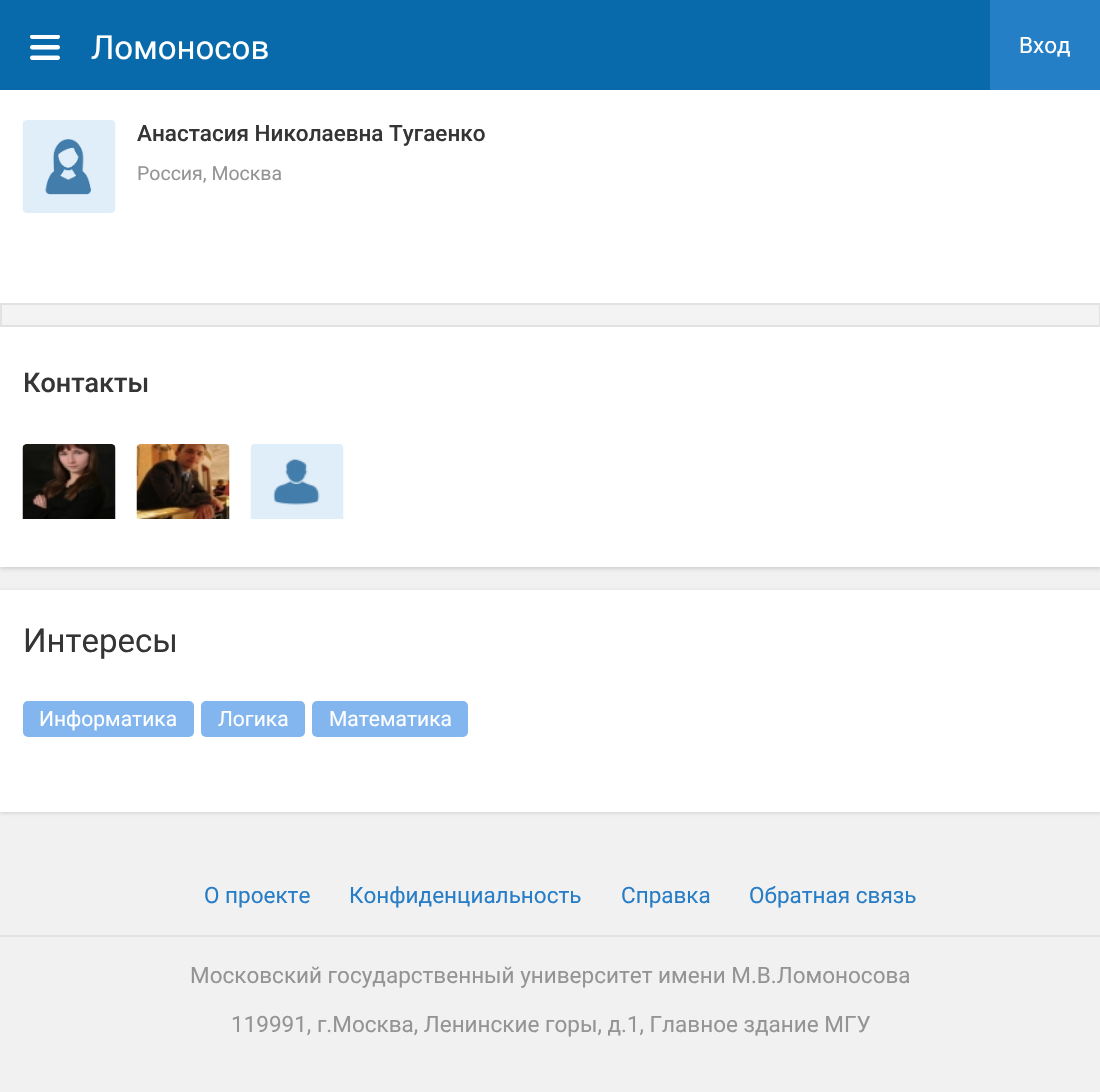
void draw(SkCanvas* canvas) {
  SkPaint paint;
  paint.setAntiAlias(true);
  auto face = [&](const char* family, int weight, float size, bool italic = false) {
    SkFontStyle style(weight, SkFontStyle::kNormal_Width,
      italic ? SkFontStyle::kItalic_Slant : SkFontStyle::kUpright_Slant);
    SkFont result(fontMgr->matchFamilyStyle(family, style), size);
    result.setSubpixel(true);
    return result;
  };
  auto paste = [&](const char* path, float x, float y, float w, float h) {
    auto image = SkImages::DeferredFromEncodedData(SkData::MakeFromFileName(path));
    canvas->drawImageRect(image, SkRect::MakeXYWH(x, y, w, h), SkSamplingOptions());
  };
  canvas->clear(0xfff1f1f1);
  paint.setColor(0x30323c49);
  paint.setMaskFilter(SkMaskFilter::MakeBlur(kNormal_SkBlurStyle, 2));
  canvas->drawRect(SkRect::MakeXYWH(0, 92, 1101, 477), paint);
  paint.setMaskFilter(nullptr);
  paint.setColor(0xff086aaa);
  canvas->drawRect(SkRect::MakeXYWH(0, 0, 990, 90), paint);
  paste("img/1.png", 30, 35, 30, 25);
  paint.setColor(0xff247fc6);
  canvas->drawRect(SkRect::MakeXYWH(990, 0, 110, 90), paint);
  paint.setColor(0xffffffff);
  canvas->drawRect(SkRect::MakeXYWH(0, 90, 1100, 477), paint);
  paste("img/2.png", 22, 120, 94, 93);
  paint.setColor(0xfff3f3f3);
  canvas->drawRect(SkRect::MakeXYWH(1, 304, 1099, 22), paint);
  paint.setStroke(true);
  paint.setStrokeWidth(2);
  paint.setColor(0xffe2e2e2);
  canvas->drawRect(SkRect::MakeXYWH(1, 304, 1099, 22), paint);
  paste("img/3.png", 22, 444, 94, 75);
  paste("img/4.png", 136, 444, 94, 75);
  paste("img/5.png", 250, 444, 94, 75);
  paint.setStroke(false);
  paint.setColor(0x30323c49);
  paint.setMaskFilter(SkMaskFilter::MakeBlur(kNormal_SkBlurStyle, 2));
  canvas->drawRect(SkRect::MakeXYWH(0, 591, 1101, 222), paint);
  paint.setMaskFilter(nullptr);
  paint.setColor(0xffffffff);
  canvas->drawRect(SkRect::MakeXYWH(0, 590, 1100, 222), paint);
  paint.setColor(0xff83b6ef);
  canvas->drawRoundRect(SkRect::MakeXYWH(23, 701, 171, 36), 5, 5, paint);
  canvas->drawRoundRect(SkRect::MakeXYWH(201, 701, 104, 36), 5, 5, paint);
  canvas->drawRoundRect(SkRect::MakeXYWH(312, 701, 156, 36), 5, 5, paint);
  paint.setColor(0xffe2e2e2);
  canvas->drawRect(SkRect::MakeXYWH(0, 935, 1100, 2), paint);
  auto f0 = face("Roboto", 400, 33);
  paint.setColor(0xffffffff);
  canvas->drawString("Ломоносов", 91, 59, f0, paint);
  auto f1 = face("Roboto", 400, 22.5f);
  canvas->drawString("Вход", 1019, 53, f1, paint);
  auto f2 = face("Roboto", 500, 22.5f);
  paint.setColor(0xff353535);
  canvas->drawString("Анастасия Николаевна Тугаенко", 137, 141, f2, paint);
  auto f3 = face("Roboto", 400, 19.5f);
  paint.setColor(0xff949494);
  canvas->drawString("Россия, Москва", 137, 180, f3, paint);
  auto f4 = face("Roboto", 500, 27);
  paint.setColor(0xff353535);
  canvas->drawString("Контакты", 23, 392, f4, paint);
  canvas->drawString("Интересы", 23, 652, f0, paint);
  auto f5 = face("Roboto", 400, 21);
  paint.setColor(0xffffffff);
  {
    const struct { const char* s; float x, y; } items[] = {
      {"Информатика", 39, 726},
      {"Логика", 218, 726},
      {"Математика", 329, 726},
    };
    for (auto [s, x, y] : items) {
      canvas->drawString(s, x, y, f5, paint);
    }
  }
  paint.setColor(0xff277dc6);
  {
    const struct { const char* s; float x, y; } items[] = {
      {"О проекте", 204, 903},
      {"Конфиденциальность", 349, 903},
      {"Cправка", 621, 903},
      {"Обратная связь", 749, 903},
    };
    for (auto [s, x, y] : items) {
      canvas->drawString(s, x, y, f1, paint);
    }
  }
  paint.setColor(0xff949494);
  canvas->drawString("Московский государственный университет имени М.В.Ломоносова", 190, 983, f1, paint);
  canvas->drawString("119991, г.Москва, Ленинские горы, д.1, Главное здание МГУ", 231, 1032, f1, paint);
}
